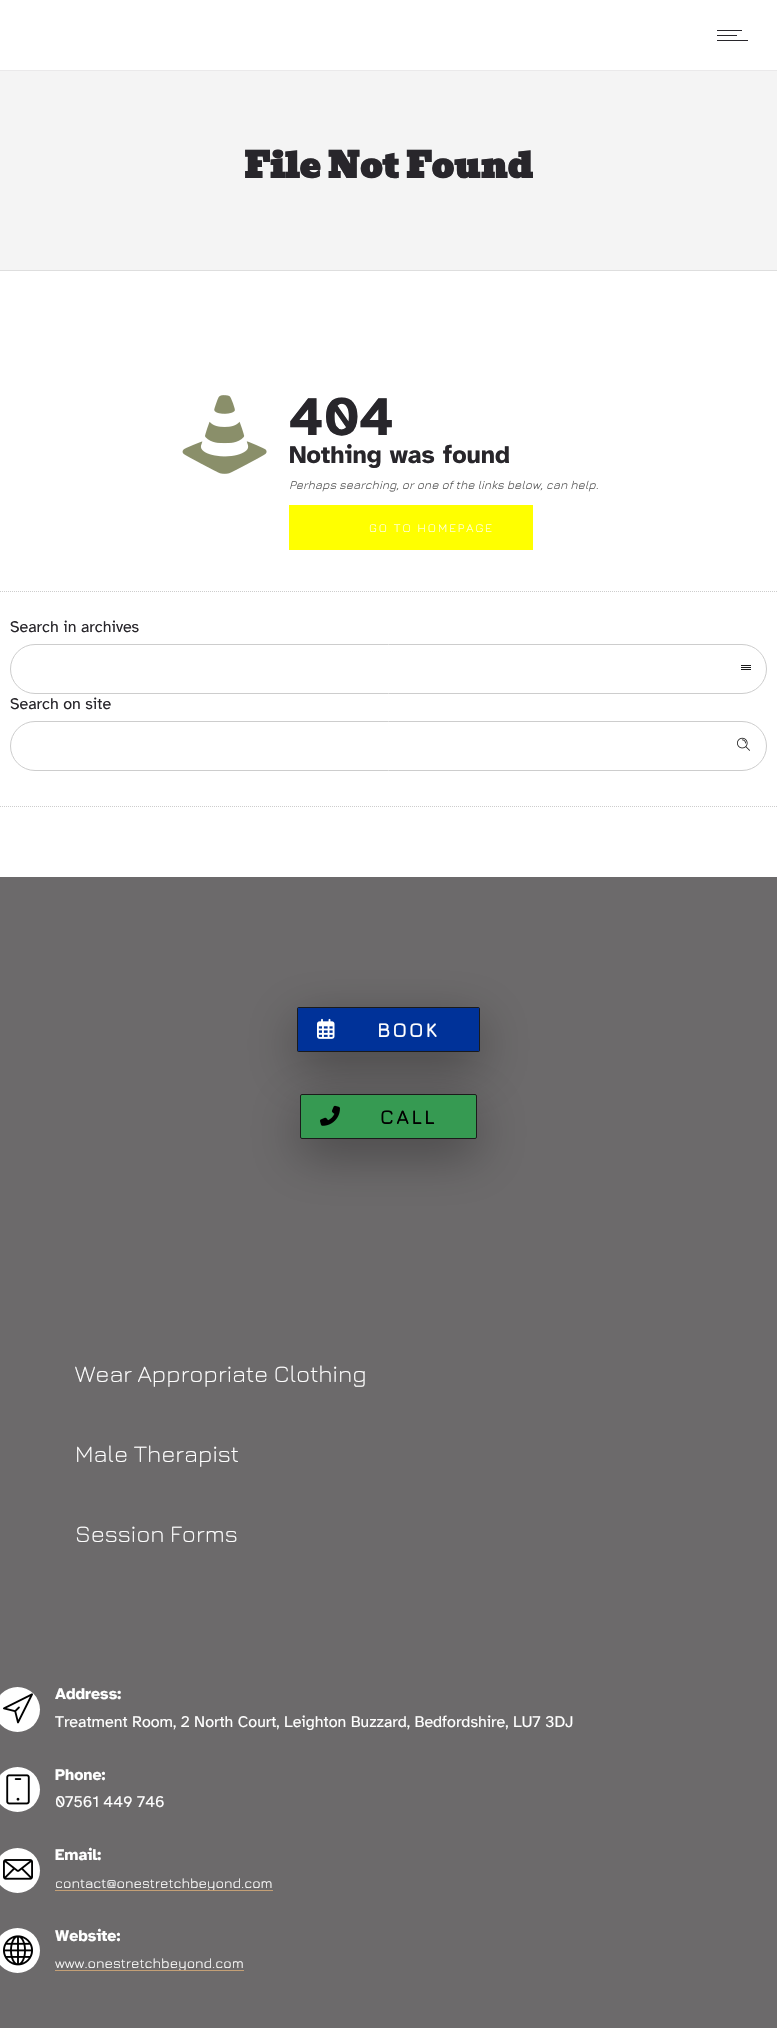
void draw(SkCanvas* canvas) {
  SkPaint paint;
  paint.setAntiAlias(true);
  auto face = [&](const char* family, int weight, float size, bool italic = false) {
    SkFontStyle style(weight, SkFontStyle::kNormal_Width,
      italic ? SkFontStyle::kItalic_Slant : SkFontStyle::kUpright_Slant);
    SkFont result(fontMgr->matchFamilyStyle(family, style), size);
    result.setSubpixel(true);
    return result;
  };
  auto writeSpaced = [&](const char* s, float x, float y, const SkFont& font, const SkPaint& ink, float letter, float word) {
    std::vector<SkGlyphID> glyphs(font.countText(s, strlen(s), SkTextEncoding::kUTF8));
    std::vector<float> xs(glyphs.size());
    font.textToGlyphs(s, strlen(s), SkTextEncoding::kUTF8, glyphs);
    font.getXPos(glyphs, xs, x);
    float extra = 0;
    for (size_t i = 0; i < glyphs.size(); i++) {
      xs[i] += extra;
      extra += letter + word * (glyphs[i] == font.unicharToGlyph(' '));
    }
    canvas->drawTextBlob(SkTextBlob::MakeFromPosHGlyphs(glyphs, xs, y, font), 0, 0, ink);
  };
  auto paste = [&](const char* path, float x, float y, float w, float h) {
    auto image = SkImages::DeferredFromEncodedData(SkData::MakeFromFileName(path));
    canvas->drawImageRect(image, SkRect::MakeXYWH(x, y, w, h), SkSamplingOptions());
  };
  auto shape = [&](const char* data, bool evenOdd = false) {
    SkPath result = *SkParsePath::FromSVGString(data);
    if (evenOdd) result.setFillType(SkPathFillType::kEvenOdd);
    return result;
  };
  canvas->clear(0xffffffff);
  {
    const struct { float x, y, w, h; SkColor color; } items[] = {
      {0, 70, 777, 1, 0xffeae9ea},
      {717, 30, 25, 1, 0xff28262b},
      {717, 35, 20, 1, 0xff28262b},
      {717, 40, 31, 1, 0xff28262b},
      {0, 71, 777, 199, 0xfff4f4f4},
      {0, 270, 777, 1, 0xffdedede},
    };
    for (auto [x, y, w, h, color] : items) {
      paint.setColor(color);
      canvas->drawRect(SkRect::MakeXYWH(x, y, w, h), paint);
    }
  }
  paste("img/1.png", 182, 395, 85, 79);
  paint.setColor(0xffffff00);
  canvas->drawRect(SkRect::MakeXYWH(289, 505, 244, 45), paint);
  paint.setStroke(true);
  paint.setStrokeWidth(1);
  paint.setColor(0xffcdcdcd);
  paint.setPathEffect(SkDashPathEffect::Make({{1, 1}}, 0));
  canvas->drawPath(shape("M0 591.5H777"), paint);
  paint.setPathEffect(nullptr);
  paint.setPathEffect(SkDashPathEffect::Make({{1, 1}}, 0));
  canvas->drawPath(shape("M0 806.5H777"), paint);
  paint.setPathEffect(nullptr);
  canvas->drawRoundRect(SkRect::MakeXYWH(10.5f, 644.5f, 756, 49), 24.5f, 24.5f, paint);
  paint.setStroke(false);
  {
    const struct { float x, y, w, h; SkColor color; } items[] = {
      {741, 669, 10, 1, 0xff1b1b1b},
      {741, 665, 10, 1, 0xff1b1b1b},
      {741, 667, 10, 1, 0xff1b1b1b},
    };
    for (auto [x, y, w, h, color] : items) {
      paint.setColor(color);
      canvas->drawRect(SkRect::MakeXYWH(x, y, w, h), paint);
    }
  }
  paste("img/2.png", 737, 737, 13, 14);
  paint.setStroke(true);
  paint.setColor(0xffcdcdcd);
  canvas->drawRoundRect(SkRect::MakeXYWH(10.5f, 721.5f, 756, 49), 24.5f, 24.5f, paint);
  paint.setStroke(false);
  paint.setColor(0xff6c6a6b);
  canvas->drawRect(SkRect::MakeXYWH(0, 877, 777, 1151), paint);
  paint.setStroke(true);
  paint.setColor(0xffcdcdcd);
  canvas->drawRoundRect(SkRect::MakeXYWH(297.5f, 1007.5f, 182, 44), 1.5f, 1.5f, paint);
  paint.setStroke(false);
  paint.setColor(0x59000000);
  paint.setMaskFilter(SkMaskFilter::MakeBlur(kNormal_SkBlurStyle, 25));
  canvas->drawRoundRect(SkRect::MakeXYWH(297, 1022, 183, 45), 2, 2, paint);
  paint.setMaskFilter(nullptr);
  paint.setColor(0xff003299);
  canvas->drawRoundRect(SkRect::MakeXYWH(297, 1007, 183, 45), 2, 2, paint);
  paint.setColor(0xff1b1b1b);
  canvas->drawPath(shape("M299 1007C298 1007 297 1008 297 1009V1050C297 1051 298 1052 299 1052H478C479 1052 480 1051 480 1050V1009C480 1008 479 1007 478 1007ZM298 1008V1051H479V1008Z", true), paint);
  paste("img/3.png", 317, 1018, 18, 21);
  paint.setColor(0x59000000);
  paint.setMaskFilter(SkMaskFilter::MakeBlur(kNormal_SkBlurStyle, 25));
  canvas->drawRoundRect(SkRect::MakeXYWH(300, 1109, 177, 45), 2, 2, paint);
  paint.setMaskFilter(nullptr);
  paint.setColor(0xff369a52);
  canvas->drawRoundRect(SkRect::MakeXYWH(300.5f, 1094.5f, 176, 44), 1.5f, 1.5f, paint);
  paint.setStroke(true);
  paint.setColor(0xff1b1b1b);
  canvas->drawRoundRect(SkRect::MakeXYWH(300.5f, 1094.5f, 176, 44), 1.5f, 1.5f, paint);
  paste("img/4.png", 320, 1105, 20, 21);
  paint.setStroke(false);
  paint.setColor(0xffffffff);
  canvas->drawCircle(17.5f, 1709.5f, 22.5f, paint);
  paste("img/5.png", 3, 1693, 30, 31);
  canvas->drawCircle(17.5f, 1789.5f, 22.5f, paint);
  paste("img/6.png", 6, 1774, 24, 31);
  canvas->drawCircle(17.5f, 1870.5f, 22.5f, paint);
  paste("img/7.png", 3, 1859, 30, 21);
  canvas->drawCircle(17.5f, 1950.5f, 22.5f, paint);
  paste("img/8.png", 3, 1935, 30, 31);
  auto f0 = face("Bevan", 700, 35);
  paint.setColor(0xff28262b);
  canvas->drawString("File Not Found", 244, 178, f0, paint);
  auto f1 = face("Atkinson Hyperlegible", 700, 55);
  canvas->drawString("404", 289, 435, f1, paint);
  auto f2 = face("Atkinson Hyperlegible", 700, 25);
  canvas->drawString("Nothing was found", 289, 463, f2, paint);
  auto f3 = face("Jura", 400, 12, true);
  paint.setColor(0xff565656);
  canvas->drawString("Perhaps searching, or one of the links below, can help.", 289, 489, f3, paint);
  auto f4 = face("Jura", 300, 12);
  paint.setColor(0xffffffff);
  writeSpaced("GO TO HOMEPAGE", 369, 532, f4, paint, 2, 0);
  auto f5 = face("Atkinson Hyperlegible", 400, 16);
  paint.setColor(0xff28262b);
  canvas->drawString("Search in archives", 10, 632, f5, paint);
  canvas->drawString("Search on site", 10, 709, f5, paint);
  auto f6 = face("Jura", 700, 20);
  paint.setColor(0xffffffff);
  writeSpaced("BOOK", 377, 1037, f6, paint, 2, 0);
  paint.setColor(0xff000000);
  writeSpaced("CALL", 380, 1124, f6, paint, 2, 0);
  auto f7 = face("Jura", 300, 24);
  paint.setColor(0xffffffff);
  {
    const struct { const char* s; float x, y; } items[] = {
      {"Wear Appropriate Clothing", 75, 1382},
      {"Male Therapist", 75, 1462},
      {"Session Forms", 75, 1542},
    };
    for (auto [s, x, y] : items) {
      canvas->drawString(s, x, y, f7, paint);
    }
  }
  auto f8 = face("Atkinson Hyperlegible", 700, 16);
  canvas->drawString("Address:", 55, 1699, f8, paint);
  canvas->drawString("Treatment Room, 2 North Court, Leighton Buzzard, Bedfordshire, LU7 3DJ", 55, 1727, f5, paint);
  canvas->drawString("Phone:", 55, 1780, f8, paint);
  canvas->drawString("07561 449 746", 55, 1807, f5, paint);
  canvas->drawString("Email:", 55, 1860, f8, paint);
  auto f9 = face("Jura", 400, 14);
  canvas->drawString("contact@onestretchbeyond.com", 55, 1888, f9, paint);
  paint.setColor(0xffc39f76);
  canvas->drawRect(SkRect::MakeXYWH(55, 1890, 218, 1), paint);
  paint.setColor(0xffffffff);
  canvas->drawString("Website:", 55, 1941, f8, paint);
  canvas->drawString("www.onestretchbeyond.com", 55, 1968, f9, paint);
  paint.setColor(0xffc39f76);
  canvas->drawRect(SkRect::MakeXYWH(55, 1970, 189, 1), paint);
}
